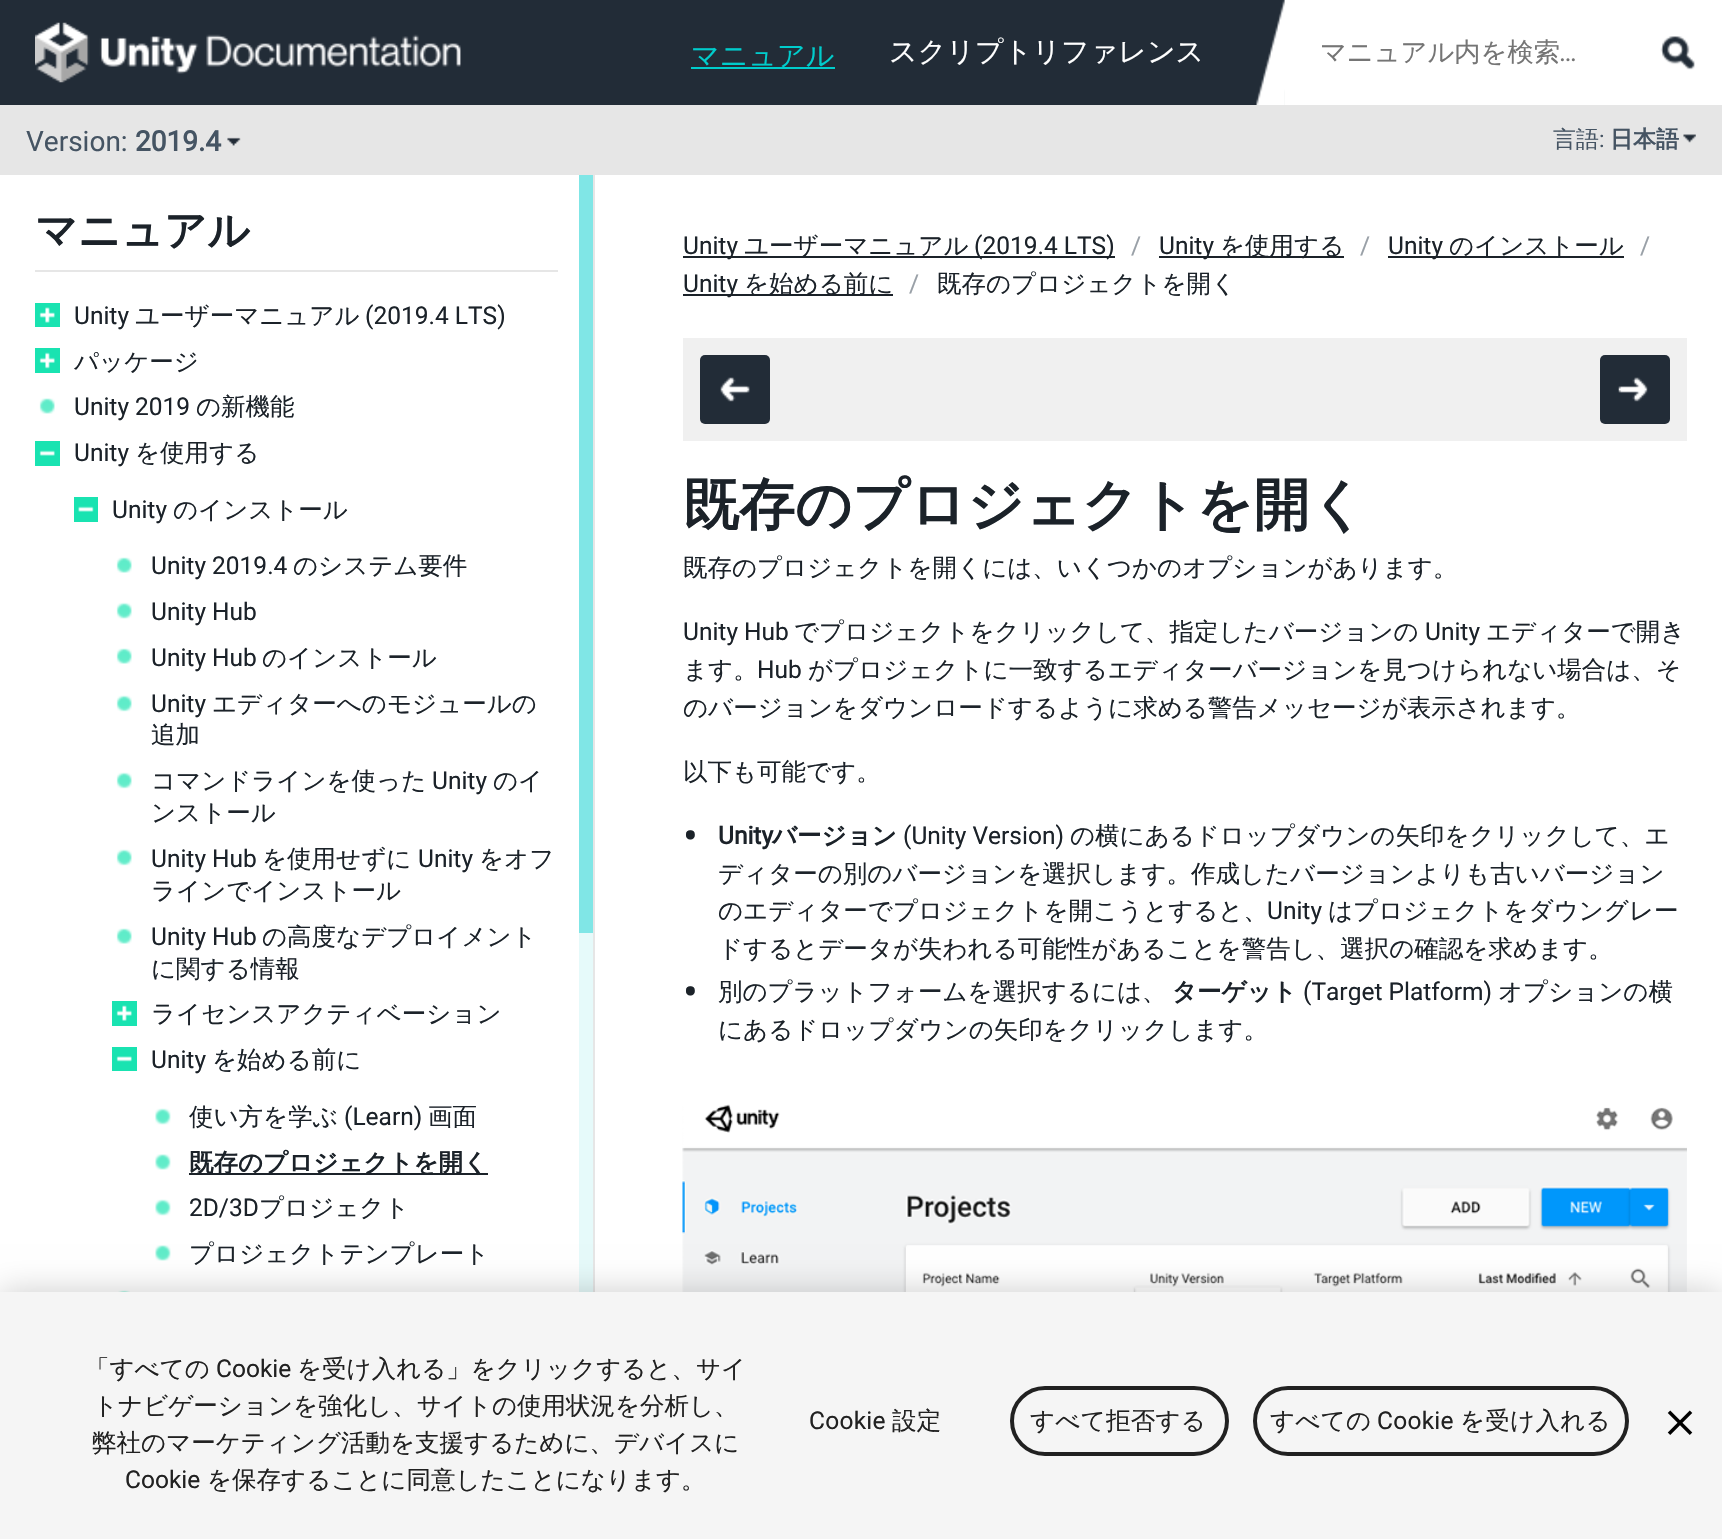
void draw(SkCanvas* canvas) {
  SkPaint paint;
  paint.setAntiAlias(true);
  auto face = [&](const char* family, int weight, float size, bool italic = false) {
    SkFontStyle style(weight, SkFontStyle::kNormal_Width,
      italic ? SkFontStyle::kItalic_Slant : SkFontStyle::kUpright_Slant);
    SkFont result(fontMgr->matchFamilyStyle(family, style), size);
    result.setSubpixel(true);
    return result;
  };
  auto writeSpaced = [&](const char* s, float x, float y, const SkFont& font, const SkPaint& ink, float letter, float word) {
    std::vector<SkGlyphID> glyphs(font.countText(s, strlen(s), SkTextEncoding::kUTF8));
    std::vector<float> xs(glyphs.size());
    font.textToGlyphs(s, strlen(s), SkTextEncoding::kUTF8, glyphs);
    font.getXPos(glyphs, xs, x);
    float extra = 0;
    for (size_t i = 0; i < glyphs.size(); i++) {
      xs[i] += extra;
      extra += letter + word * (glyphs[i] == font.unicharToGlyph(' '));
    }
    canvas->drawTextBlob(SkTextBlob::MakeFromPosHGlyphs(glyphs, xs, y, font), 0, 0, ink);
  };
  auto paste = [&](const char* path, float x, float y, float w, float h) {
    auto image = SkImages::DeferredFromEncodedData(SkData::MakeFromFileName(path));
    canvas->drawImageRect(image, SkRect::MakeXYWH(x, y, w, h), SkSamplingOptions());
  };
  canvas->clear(0xffffffff);
  paint.setColor(0xff222c37);
  canvas->drawRect(SkRect::MakeXYWH(0, 0, 1285, 105), paint);
  paste("img/1.png", 35, 22, 426, 61);
  paint.setColor(0xff00cccc);
  canvas->drawRect(SkRect::MakeXYWH(691, 67, 144, 2), paint);
  paste("img/2.png", 1256, 0, 29, 105);
  paste("img/3.png", 1660, 36, 35, 34);
  paint.setColor(0xffe6e6e6);
  canvas->drawRect(SkRect::MakeXYWH(0, 105, 1722, 70), paint);
  paste("img/4.png", 227, 137, 14, 9);
  paste("img/5.png", 1683, 134, 13, 9);
  {
    const struct { float x, y, w, h; SkColor color; } items[] = {
      {593, 175, 2, 1117, 0xffe6e6e6},
      {35, 270, 523, 2, 0xffe6e6e6},
      {35, 303, 25, 24, 0xff19e3b1},
    };
    for (auto [x, y, w, h, color] : items) {
      paint.setColor(color);
      canvas->drawRect(SkRect::MakeXYWH(x, y, w, h), paint);
    }
  }
  paste("img/6.png", 39, 307, 16, 16);
  canvas->drawRect(SkRect::MakeXYWH(35, 348, 25, 25), paint);
  paste("img/7.png", 39, 352, 16, 17);
  paste("img/8.png", 39, 398, 16, 16);
  canvas->drawRect(SkRect::MakeXYWH(35, 441, 25, 25), paint);
  paste("img/9.png", 39, 450, 16, 6);
  canvas->drawRect(SkRect::MakeXYWH(74, 497, 24, 25), paint);
  paste("img/10.png", 78, 506, 16, 6);
  paste("img/11.png", 116, 557, 16, 16);
  paste("img/12.png", 116, 602, 16, 17);
  paste("img/11.png", 116, 648, 16, 16);
  paste("img/13.png", 116, 695, 16, 17);
  paste("img/13.png", 116, 772, 16, 17);
  paste("img/13.png", 116, 849, 16, 17);
  paste("img/11.png", 116, 928, 16, 16);
  canvas->drawRect(SkRect::MakeXYWH(112, 1001, 25, 25), paint);
  paste("img/14.png", 116, 1005, 16, 16);
  canvas->drawRect(SkRect::MakeXYWH(112, 1047, 25, 24), paint);
  paste("img/15.png", 116, 1056, 16, 6);
  paste("img/16.png", 155, 1108, 16, 17);
  paste("img/17.png", 155, 1154, 16, 16);
  paint.setColor(0xff1b2229);
  canvas->drawRect(SkRect::MakeXYWH(189, 1173, 299, 2), paint);
  paste("img/16.png", 155, 1199, 16, 17);
  paste("img/18.png", 155, 1245, 16, 16);
  paste("img/19.png", 118, 1290, 12, 2);
  {
    const struct { float x, y, w, h; SkColor color; } items[] = {
      {579, 175, 14, 758, 0xff80e6e6},
      {579, 933, 14, 359, 0xffe6fafa},
      {683, 256, 432, 2, 0xff1b2229},
      {1159, 256, 185, 2, 0xff1b2229},
      {1388, 256, 236, 2, 0xff1b2229},
      {683, 294, 210, 2, 0xff1b2229},
      {683, 338, 1004, 103, 0xfff0f0f0},
    };
    for (auto [x, y, w, h, color] : items) {
      paint.setColor(color);
      canvas->drawRect(SkRect::MakeXYWH(x, y, w, h), paint);
    }
  }
  paint.setColor(0xff222c37);
  canvas->drawRoundRect(SkRect::MakeXYWH(700, 355, 70, 69), 5, 5, paint);
  paste("img/20.png", 720, 377, 30, 25);
  canvas->drawRoundRect(SkRect::MakeXYWH(1600, 355, 70, 69), 5, 5, paint);
  paste("img/21.png", 1618, 377, 30, 25);
  paste("img/22.png", 682, 1104, 1005, 188);
  paint.setColor(0x33000000);
  paint.setMaskFilter(SkMaskFilter::MakeBlur(kNormal_SkBlurStyle, 16));
  canvas->drawRect(SkRect::MakeXYWH(0, 1292, 1722, 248), paint);
  paint.setMaskFilter(nullptr);
  paint.setColor(0xfff5f5f5);
  canvas->drawRect(SkRect::MakeXYWH(0, 1292, 1722, 247), paint);
  paint.setStroke(true);
  paint.setStrokeWidth(4);
  paint.setColor(0xff212121);
  canvas->drawRoundRect(SkRect::MakeXYWH(1012, 1388, 215, 66), 33, 33, paint);
  canvas->drawRoundRect(SkRect::MakeXYWH(1255, 1388, 372, 66), 33, 33, paint);
  paste("img/23.png", 1667, 1410, 26, 25);
  auto f0 = face("WenQuanYi Zen Hei", 500, 28);
  paint.setStroke(false);
  paint.setColor(0xff00cccc);
  canvas->drawString("マニュアル", 691, 65, f0, paint);
  paint.setColor(0xffffffff);
  canvas->drawString("スクリプトリファレンス", 889, 61, f0, paint);
  auto f1 = face("WenQuanYi Zen Hei", 500, 26.25f);
  paint.setColor(0xff757575);
  canvas->drawString("マニュアル内を検索", 1320, 61, f1, paint);
  auto f2 = face("Roboto", 400, 26.25f);
  canvas->drawString("…", 1559, 61, f2, paint);
  auto f3 = face("Roboto", 400, 28);
  paint.setColor(0xff455463);
  canvas->drawString("Version:", 26, 151, f3, paint);
  auto f4 = face("Roboto", 700, 28);
  canvas->drawString("2019.4", 135, 151, f4, paint);
  auto f5 = face("WenQuanYi Zen Hei", 500, 23);
  canvas->drawString("言語", 1553, 147, f5, paint);
  auto f6 = face("Roboto", 400, 23);
  canvas->drawString(":", 1599, 147, f6, paint);
  auto f7 = face("WenQuanYi Zen Hei", 700, 23);
  canvas->drawString("日本語", 1610, 147, f7, paint);
  auto f8 = face("WenQuanYi Zen Hei", 700, 42);
  paint.setColor(0xff1b2229);
  canvas->drawString("マニュアル", 35, 245, f8, paint);
  auto f9 = face("Roboto", 400, 24.5f);
  canvas->drawString("Unity", 74, 324, f9, paint);
  auto f10 = face("WenQuanYi Zen Hei", 500, 24.5f);
  canvas->drawString("ユーザーマニュアル", 135, 324, f10, paint);
  canvas->drawString("(2019.4 LTS)", 365, 324, f9, paint);
  canvas->drawString("パッケージ", 74, 370, f10, paint);
  canvas->drawString("Unity 2019", 74, 415, f9, paint);
  canvas->drawString("の新機能", 196, 415, f10, paint);
  canvas->drawString("Unity", 74, 461, f9, paint);
  canvas->drawString("を使用する", 135, 461, f10, paint);
  canvas->drawString("Unity", 112, 518, f9, paint);
  canvas->drawString("のインストール", 173, 518, f10, paint);
  canvas->drawString("Unity 2019.4", 151, 574, f9, paint);
  canvas->drawString("のシステム要件", 293, 574, f10, paint);
  canvas->drawString("Unity Hub", 151, 620, f9, paint);
  canvas->drawString("Unity Hub", 151, 666, f9, paint);
  canvas->drawString("のインストール", 262, 666, f10, paint);
  canvas->drawString("Unity", 151, 712, f9, paint);
  {
    const struct { const char* s; float x, y; } items[] = {
      {"エディターへのモジュールの", 212, 712},
      {"追加", 151, 743},
      {"コマンドラインを使った", 151, 789},
    };
    for (auto [s, x, y] : items) {
      canvas->drawString(s, x, y, f10, paint);
    }
  }
  canvas->drawString("Unity", 432, 789, f9, paint);
  canvas->drawString("のイ", 493, 789, f10, paint);
  canvas->drawString("ンストール", 151, 821, f10, paint);
  canvas->drawString("Unity Hub", 151, 867, f9, paint);
  canvas->drawString("を使用せずに", 262, 867, f10, paint);
  canvas->drawString("Unity", 418, 867, f9, paint);
  canvas->drawString("をオフ", 479, 867, f10, paint);
  canvas->drawString("ラインでインストール", 151, 899, f10, paint);
  canvas->drawString("Unity Hub", 151, 945, f9, paint);
  {
    const struct { const char* s; float x, y; } items[] = {
      {"の高度なデプロイメント", 262, 945},
      {"に関する情報", 151, 977},
      {"ライセンスアクティベーション", 151, 1022},
    };
    for (auto [s, x, y] : items) {
      canvas->drawString(s, x, y, f10, paint);
    }
  }
  canvas->drawString("Unity", 151, 1068, f9, paint);
  canvas->drawString("を始める前に", 212, 1068, f10, paint);
  canvas->drawString("使い方を学ぶ", 189, 1125, f10, paint);
  canvas->drawString("(Learn)", 344, 1125, f9, paint);
  canvas->drawString("画面", 428, 1125, f10, paint);
  auto f11 = face("WenQuanYi Zen Hei", 700, 24.5f);
  canvas->drawString("既存のプロジェクトを開く", 189, 1171, f11, paint);
  canvas->drawString("2D/3D", 189, 1216, f9, paint);
  canvas->drawString("プロジェクト", 259, 1216, f10, paint);
  canvas->drawString("プロジェクトテンプレート", 189, 1262, f10, paint);
  canvas->drawString("Unity", 683, 254, f9, paint);
  canvas->drawString("ユーザーマニュアル", 744, 254, f10, paint);
  canvas->drawString("(2019.4 LTS)", 974, 254, f9, paint);
  paint.setColor(0xff99a0a7);
  canvas->drawString("/", 1131, 254, f9, paint);
  paint.setColor(0xff1b2229);
  canvas->drawString("Unity", 1159, 254, f9, paint);
  canvas->drawString("を使用する", 1220, 254, f10, paint);
  paint.setColor(0xff99a0a7);
  canvas->drawString("/", 1360, 254, f9, paint);
  paint.setColor(0xff1b2229);
  canvas->drawString("Unity", 1388, 254, f9, paint);
  canvas->drawString("のインストール", 1449, 254, f10, paint);
  paint.setColor(0xff99a0a7);
  canvas->drawString("/", 1640, 254, f9, paint);
  paint.setColor(0xff1b2229);
  canvas->drawString("Unity", 683, 292, f9, paint);
  canvas->drawString("を始める前に", 744, 292, f10, paint);
  paint.setColor(0xff99a0a7);
  canvas->drawString("/", 909, 292, f9, paint);
  paint.setColor(0xff1b2229);
  canvas->drawString("既存のプロジェクトを開く", 937, 292, f10, paint);
  auto f12 = face("WenQuanYi Zen Hei", 700, 56);
  canvas->drawString("既存のプロジェクトを開く", 683, 524, f12, paint);
  canvas->drawString("既存のプロジェクトを開くには、いくつかのオプションがあります。", 683, 576, f10, paint);
  canvas->drawString("Unity Hub", 683, 640, f9, paint);
  canvas->drawString("でプロジェクトをクリックして、指定したバージョンの", 794, 640, f10, paint);
  canvas->drawString("Unity", 1425, 640, f9, paint);
  canvas->drawString("エディターで開き", 1486, 640, f10, paint);
  canvas->drawString("ます。", 683, 678, f10, paint);
  canvas->drawString("Hub", 757, 678, f9, paint);
  {
    const struct { const char* s; float x, y; } items[] = {
      {"がプロジェクトに一致するエディターバージョンを見つけられない場合は、そ", 808, 678},
      {"のバージョンをダウンロードするように求める警告メッセージが表示されます。", 683, 716},
      {"以下も可能です。", 683, 780},
    };
    for (auto [s, x, y] : items) {
      canvas->drawString(s, x, y, f10, paint);
    }
  }
  auto f13 = face("Roboto", 400, 44);
  canvas->drawString("•", 683, 851, f13, paint);
  auto f14 = face("Roboto", 700, 24.5f);
  canvas->drawString("Unity", 718, 844, f14, paint);
  canvas->drawString("バージョン", 772, 844, f11, paint);
  canvas->drawString("(Unity Version)", 903, 844, f9, paint);
  {
    const struct { const char* s; float x, y; } items[] = {
      {"の横にあるドロップダウンの矢印をクリックして、エ", 1070, 844},
      {"ディターの別のバージョンを選択します。作成したバージョンよりも古いバージョン", 718, 882},
      {"のエディターでプロジェクトを開こうとすると、", 718, 919},
    };
    for (auto [s, x, y] : items) {
      canvas->drawString(s, x, y, f10, paint);
    }
  }
  canvas->drawString("Unity", 1267, 919, f9, paint);
  canvas->drawString("はプロジェクトをダウングレー", 1328, 919, f10, paint);
  canvas->drawString("ドするとデータが失われる可能性があることを警告し、選択の確認を求めます。", 718, 957, f10, paint);
  canvas->drawString("•", 683, 1007, f13, paint);
  canvas->drawString("別のプラットフォームを選択するには、", 718, 1000, f10, paint);
  canvas->drawString("ターゲット", 1172, 1000, f11, paint);
  canvas->drawString("(Target Platform)", 1303, 1000, f9, paint);
  canvas->drawString("オプションの横", 1498, 1000, f10, paint);
  canvas->drawString("にあるドロップダウンの矢印をクリックします。", 718, 1038, f10, paint);
  paint.setColor(0xff212121);
  canvas->drawString("「すべての", 85, 1377, f10, paint);
  canvas->drawString("Cookie", 216, 1377, f9, paint);
  {
    const struct { const char* s; float x, y; } items[] = {
      {"を受け入れる」をクリックすると、サイ", 297, 1377},
      {"トナビゲーションを強化し、サイトの使用状況を分析し、", 93, 1414},
      {"弊社のマーケティング活動を支援するために、デバイスに", 92, 1451},
    };
    for (auto [s, x, y] : items) {
      canvas->drawString(s, x, y, f10, paint);
    }
  }
  canvas->drawString("Cookie", 125, 1488, f9, paint);
  canvas->drawString("を保存することに同意したことになります。", 207, 1488, f10, paint);
  writeSpaced("Cookie", 809, 1429, f9, paint, 0.25f, 0);
  {
    const struct { const char* s; float x, y; } items[] = {
      {"設定", 892, 1429},
      {"すべて拒否する", 1030, 1429},
      {"すべての", 1270, 1429},
    };
    for (auto [s, x, y] : items) {
      writeSpaced(s, x, y, f10, paint, 0.25f, 0);
    }
  }
  writeSpaced("Cookie", 1377, 1429, f9, paint, 0.25f, 0);
  writeSpaced("を受け入れる", 1460, 1429, f10, paint, 0.25f, 0);
}
